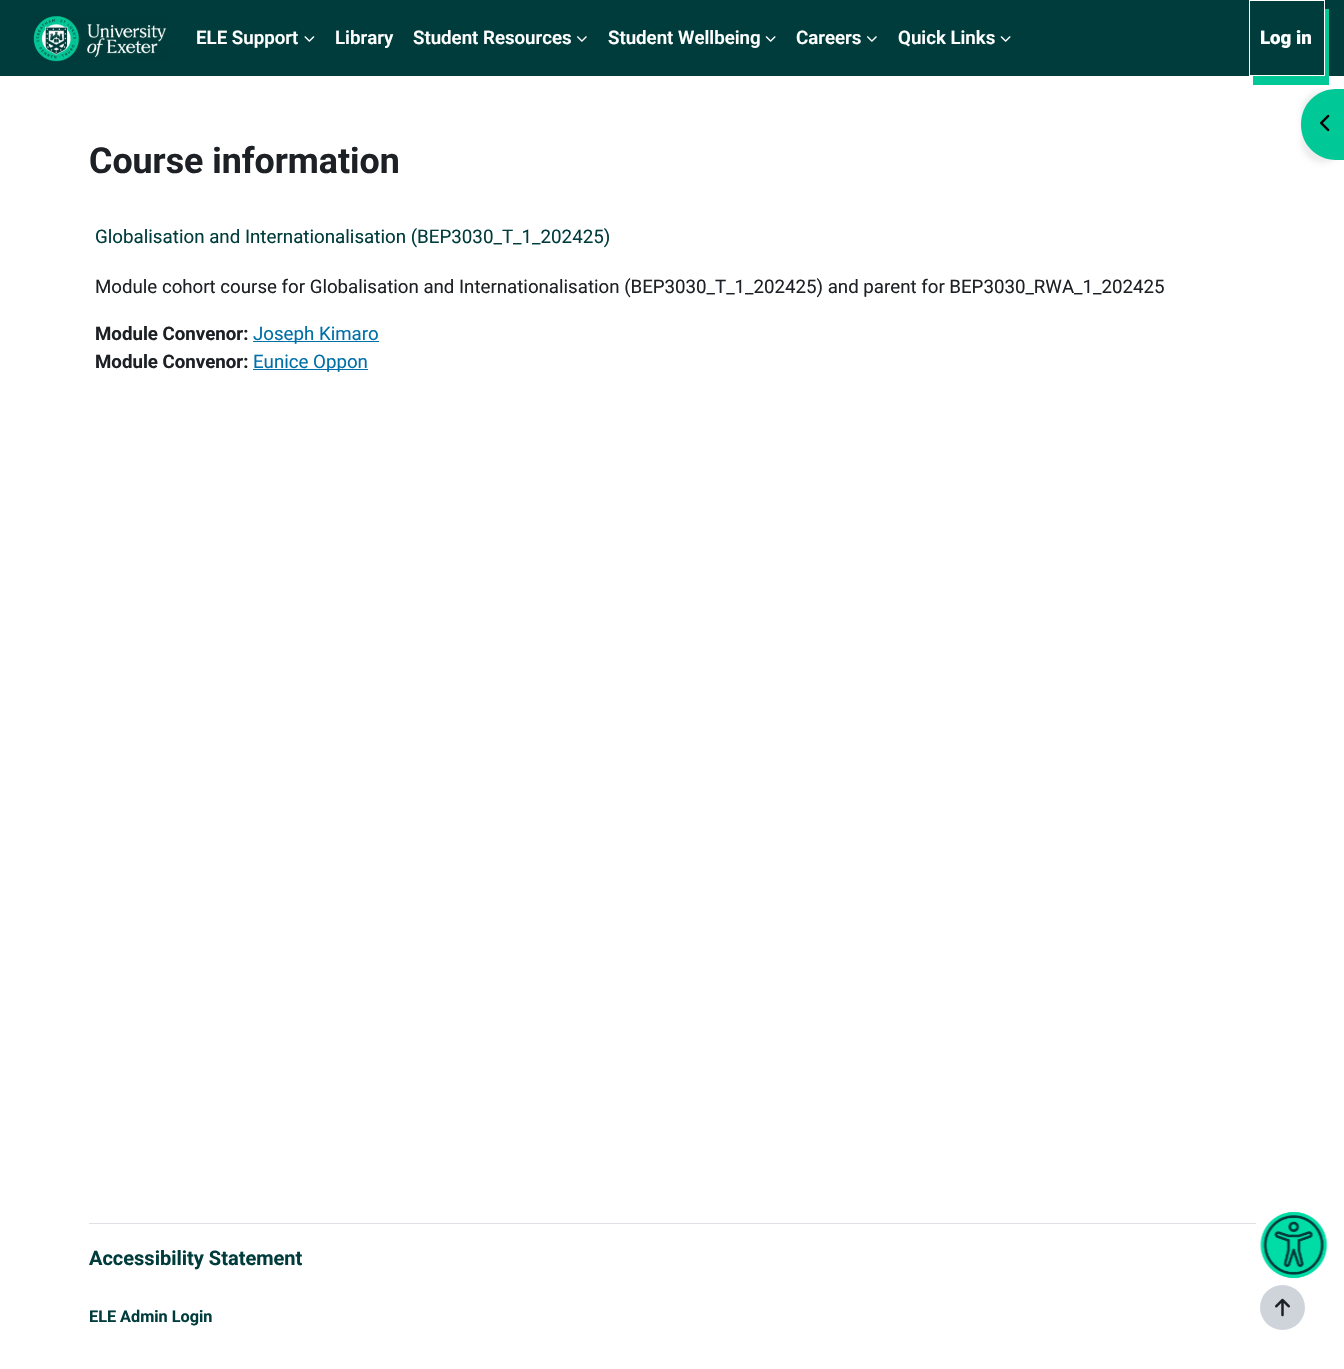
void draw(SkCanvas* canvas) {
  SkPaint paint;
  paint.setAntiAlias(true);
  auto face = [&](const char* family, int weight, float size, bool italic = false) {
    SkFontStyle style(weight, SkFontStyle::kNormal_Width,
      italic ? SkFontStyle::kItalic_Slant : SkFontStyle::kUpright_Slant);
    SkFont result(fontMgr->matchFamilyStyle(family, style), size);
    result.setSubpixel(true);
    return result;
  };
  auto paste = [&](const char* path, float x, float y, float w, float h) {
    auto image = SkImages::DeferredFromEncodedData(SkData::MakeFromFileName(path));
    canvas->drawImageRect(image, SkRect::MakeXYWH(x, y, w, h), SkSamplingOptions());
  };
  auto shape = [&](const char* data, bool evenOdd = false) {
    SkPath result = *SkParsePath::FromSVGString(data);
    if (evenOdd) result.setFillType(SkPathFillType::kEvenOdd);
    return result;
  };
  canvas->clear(0xffffffff);
  paint.setColor(0xff003c3c);
  canvas->drawRect(SkRect::MakeXYWH(0, 0, 1344, 76), paint);
  paste("img/1.png", 33, 16, 134, 46);
  paste("img/2.png", 304, 36, 11, 6);
  paste("img/3.png", 577, 36, 10, 6);
  paste("img/4.png", 765, 36, 11, 6);
  paste("img/3.png", 867, 36, 10, 6);
  paste("img/4.png", 1000, 36, 11, 6);
  paint.setColor(0x12000000);
  paint.setMaskFilter(SkMaskFilter::MakeBlur(kNormal_SkBlurStyle, 2.5f));
  canvas->drawRoundRect(SkRect::MakeXYWH(1301, 91, 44, 72), 35, 35, paint);
  paint.setMaskFilter(nullptr);
  paint.setColor(0xff00c896);
  canvas->drawPath(shape("M1253 76V85H1329V9H1325V76Z"), paint);
  paint.setStroke(true);
  paint.setStrokeWidth(1);
  paint.setColor(0xffffffff);
  canvas->drawRect(SkRect::MakeXYWH(1249.5f, 0.5f, 75, 75), paint);
  paint.setStroke(false);
  paint.setColor(0xff00c896);
  canvas->drawPath(shape("M1336 89H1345V160H1336C1316.5 160 1301 144.5 1301 125V124C1301 104.5 1316.5 89 1336 89Z"), paint);
  paste("img/5.png", 1320, 114, 10, 18);
  {
    const struct { float x, y, w, h; SkColor color; } items[] = {
      {253, 341, 126, 1, 0xff0070a8},
      {253, 369, 115, 1, 0xff0070a8},
      {89, 1223, 1167, 1, 0xffdee2e6},
    };
    for (auto [x, y, w, h, color] : items) {
      paint.setColor(color);
      canvas->drawRect(SkRect::MakeXYWH(x, y, w, h), paint);
    }
  }
  paint.setColor(0xffced4da);
  canvas->drawCircle(1282.5f, 1307.5f, 22.5f, paint);
  paste("img/6.png", 1275, 1298, 15, 19);
  paste("img/7.png", 1260, 1211, 68, 68);
  auto f0 = face("Roboto", 600, 18.68f);
  paint.setColor(0xffffffff);
  {
    const struct { const char* s; float x, y; } items[] = {
      {"ELE Support", 196, 44},
      {"Library", 335, 44},
      {"Student Resources", 413, 44},
      {"Student Wellbeing", 608, 44},
      {"Careers", 796, 44},
      {"Quick Links", 898, 44},
    };
    for (auto [s, x, y] : items) {
      canvas->drawString(s, x, y, f0, paint);
    }
  }
  auto f1 = face("Roboto", 900, 18.68f);
  canvas->drawString("Log in", 1260, 44, f1, paint);
  auto f2 = face("Roboto", 700, 35.75f);
  paint.setColor(0xff1d2125);
  canvas->drawString("Course information", 89, 173, f2, paint);
  auto f3 = face("Roboto", 400, 18.75f);
  paint.setColor(0xff003c3c);
  canvas->drawString("Globalisation and Internationalisation (BEP3030_T_1_202425)", 95, 243, f3, paint);
  auto f4 = face("Roboto", 400, 18.68f);
  paint.setColor(0xff1d2125);
  canvas->drawString("Module cohort course for Globalisation and Internationalisation (BEP3030_T_1_202425) and parent for BEP3030_RWA_1_202425", 95, 293, f4, paint);
  auto f5 = face("Roboto", 700, 18.68f);
  canvas->drawString("Module Convenor:", 95, 340, f5, paint);
  paint.setColor(0xff0070a8);
  canvas->drawString("Joseph Kimaro", 253, 340, f4, paint);
  paint.setColor(0xff1d2125);
  canvas->drawString("Module Convenor:", 95, 368, f5, paint);
  paint.setColor(0xff0070a8);
  canvas->drawString("Eunice Oppon", 253, 368, f4, paint);
  auto f6 = face("Roboto", 700, 20);
  paint.setColor(0xff003c3c);
  canvas->drawString("Accessibility Statement", 89, 1265, f6, paint);
  auto f7 = face("Roboto", 700, 16.25f);
  canvas->drawString("ELE Admin Login", 89, 1322, f7, paint);
}
